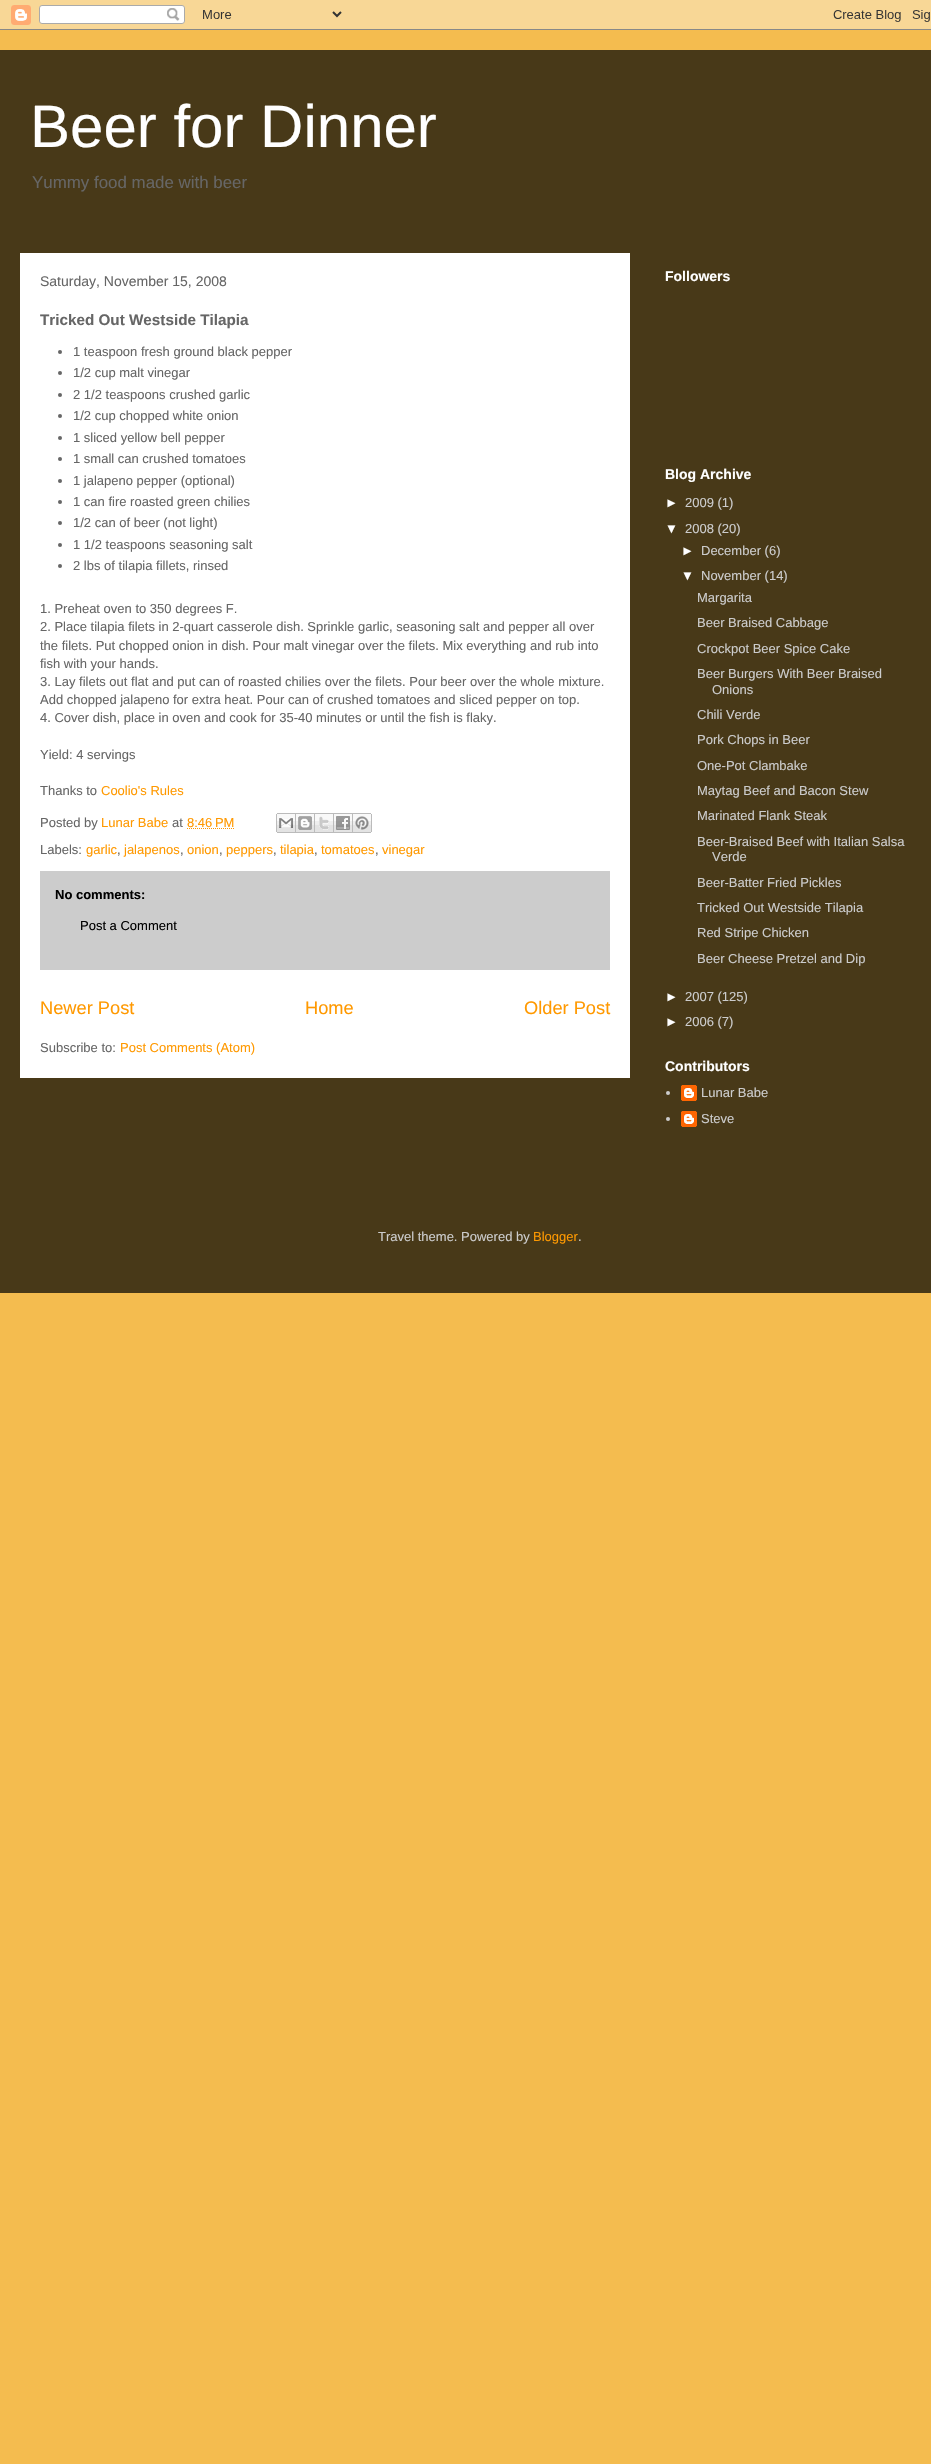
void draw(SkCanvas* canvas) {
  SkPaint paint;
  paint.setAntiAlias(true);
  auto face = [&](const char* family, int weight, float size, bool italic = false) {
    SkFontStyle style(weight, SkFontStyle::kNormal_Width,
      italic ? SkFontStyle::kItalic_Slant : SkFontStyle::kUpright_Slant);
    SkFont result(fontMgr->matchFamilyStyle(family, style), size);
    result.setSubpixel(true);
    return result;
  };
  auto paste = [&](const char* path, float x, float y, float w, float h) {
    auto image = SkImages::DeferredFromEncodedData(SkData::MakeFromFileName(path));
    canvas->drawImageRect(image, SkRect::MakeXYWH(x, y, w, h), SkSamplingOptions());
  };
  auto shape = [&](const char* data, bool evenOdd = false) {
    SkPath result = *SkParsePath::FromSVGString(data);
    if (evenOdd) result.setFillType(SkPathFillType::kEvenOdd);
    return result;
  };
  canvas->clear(0xfff4bc4f);
  paste("img/1.png", 0, 0, 931, 30);
  paint.setColor(0xff483918);
  canvas->drawRect(SkRect::MakeXYWH(0, 50, 931, 1243), paint);
  paint.setColor(0xffffffff);
  canvas->drawRect(SkRect::MakeXYWH(20, 253, 610, 825), paint);
  paint.setColor(0xff666666);
  canvas->drawCircle(60, 352, 2, paint);
  canvas->drawCircle(60, 373, 2, paint);
  canvas->drawCircle(60, 395, 2, paint);
  canvas->drawCircle(60, 416, 2, paint);
  canvas->drawCircle(60, 438, 2, paint);
  canvas->drawCircle(60, 459, 2, paint);
  canvas->drawCircle(60, 481, 2, paint);
  canvas->drawCircle(60, 502, 2, paint);
  canvas->drawCircle(60, 523, 2, paint);
  canvas->drawCircle(60, 545, 2, paint);
  canvas->drawCircle(60, 566, 2, paint);
  paint.setStroke(true);
  paint.setStrokeWidth(1);
  paint.setColor(0xffff9900);
  paint.setPathEffect(SkDashPathEffect::Make({{1, 1}}, 0));
  canvas->drawPath(shape("M187 828.5H234"), paint);
  paint.setPathEffect(nullptr);
  paste("img/2.png", 276, 813, 20, 20);
  paste("img/3.png", 296, 813, 19, 20);
  paste("img/4.png", 315, 813, 19, 20);
  paste("img/5.png", 334, 813, 19, 20);
  paste("img/6.png", 353, 813, 19, 20);
  paint.setStroke(false);
  paint.setColor(0xffcccccc);
  canvas->drawRect(SkRect::MakeXYWH(40, 871, 570, 99), paint);
  canvas->drawCircle(668, 1093, 2, paint);
  paste("img/7.png", 681, 1085, 16, 16);
  canvas->drawCircle(668, 1119, 2, paint);
  paste("img/7.png", 681, 1111, 16, 16);
  auto f0 = face("Liberation Sans", 400, 60);
  paint.setColor(0xffffffff);
  canvas->drawString("Beer for Dinner", 30, 147, f0, paint);
  auto f1 = face("Liberation Sans", 400, 16.9f);
  paint.setColor(0xff666666);
  canvas->drawString("Yummy food made with beer", 32, 188, f1, paint);
  auto f2 = face("Liberation Sans", 400, 14);
  canvas->drawString("Saturday, November 15, 2008", 40, 286, f2, paint);
  auto f3 = face("Liberation Sans", 700, 15.25f);
  canvas->drawString("Tricked Out Westside Tilapia", 40, 325, f3, paint);
  auto f4 = face("Liberation Sans", 400, 13);
  {
    const struct { const char* s; float x, y; } items[] = {
      {"1 teaspoon fresh ground black pepper", 73, 356},
      {"1/2 cup malt vinegar", 73, 377},
      {"2 1/2 teaspoons crushed garlic", 73, 399},
      {"1/2 cup chopped white onion", 73, 420},
      {"1 sliced yellow bell pepper", 73, 442},
      {"1 small can crushed tomatoes", 73, 463},
      {"1 jalapeno pepper (optional)", 73, 485},
      {"1 can fire roasted green chilies", 73, 506},
      {"1/2 can of beer (not light)", 73, 527},
      {"1 1/2 teaspoons seasoning salt", 73, 549},
      {"2 lbs of tilapia fillets, rinsed", 73, 570},
      {"1. Preheat oven to 350 degrees F.", 40, 613},
      {"2. Place tilapia filets in 2-quart casserole dish. Sprinkle garlic, seasoning salt and pepper all over", 40, 631},
      {"the filets. Put chopped onion in dish. Pour malt vinegar over the filets. Mix everything and rub into", 40, 650},
      {"fish with your hands.", 40, 668},
      {"3. Lay filets out flat and put can of roasted chilies over the filets. Pour beer over the whole mixture.", 40, 686},
      {"Add chopped jalapeno for extra heat. Pour can of crushed tomatoes and sliced pepper on top.", 40, 704},
      {"4. Cover dish, place in oven and cook for 35-40 minutes or until the fish is flaky.", 40, 722},
      {"Yield: 4 servings", 40, 759},
      {"Thanks to", 40, 795},
    };
    for (auto [s, x, y] : items) {
      canvas->drawString(s, x, y, f4, paint);
    }
  }
  paint.setColor(0xffff9900);
  canvas->drawString("Coolio's Rules", 101, 795, f4, paint);
  paint.setColor(0xff666666);
  canvas->drawString("Posted by", 40, 827, f4, paint);
  paint.setColor(0xffff9900);
  canvas->drawString("Lunar Babe", 101, 827, f4, paint);
  paint.setColor(0xff666666);
  canvas->drawString("at", 172, 827, f4, paint);
  paint.setColor(0xffff9900);
  canvas->drawString("8:46 PM", 187, 827, f4, paint);
  paint.setColor(0xff666666);
  canvas->drawString("Labels:", 40, 854, f4, paint);
  paint.setColor(0xffff9900);
  canvas->drawString("garlic", 86, 854, f4, paint);
  paint.setColor(0xff666666);
  canvas->drawString(",", 117, 854, f4, paint);
  paint.setColor(0xffff9900);
  canvas->drawString("jalapenos", 124, 854, f4, paint);
  paint.setColor(0xff666666);
  canvas->drawString(",", 180, 854, f4, paint);
  paint.setColor(0xffff9900);
  canvas->drawString("onion", 187, 854, f4, paint);
  paint.setColor(0xff666666);
  canvas->drawString(",", 219, 854, f4, paint);
  paint.setColor(0xffff9900);
  canvas->drawString("peppers", 226, 854, f4, paint);
  paint.setColor(0xff666666);
  canvas->drawString(",", 273, 854, f4, paint);
  paint.setColor(0xffff9900);
  canvas->drawString("tilapia", 280, 854, f4, paint);
  paint.setColor(0xff666666);
  canvas->drawString(",", 314, 854, f4, paint);
  paint.setColor(0xffff9900);
  canvas->drawString("tomatoes", 321, 854, f4, paint);
  paint.setColor(0xff666666);
  canvas->drawString(",", 375, 854, f4, paint);
  paint.setColor(0xffff9900);
  canvas->drawString("vinegar", 382, 854, f4, paint);
  auto f5 = face("Liberation Sans", 700, 13);
  paint.setColor(0xff000000);
  canvas->drawString("No comments:", 55, 899, f5, paint);
  canvas->drawString("Post a Comment", 80, 930, f4, paint);
  auto f6 = face("Liberation Sans", 400, 18.25f);
  paint.setColor(0xffff9900);
  {
    const struct { const char* s; float x, y; } items[] = {
      {"Newer Post", 40, 1014},
      {"Home", 305, 1014},
      {"Older Post", 524, 1014},
    };
    for (auto [s, x, y] : items) {
      canvas->drawString(s, x, y, f6, paint);
    }
  }
  paint.setColor(0xff666666);
  canvas->drawString("Subscribe to:", 40, 1052, f4, paint);
  paint.setColor(0xffff9900);
  canvas->drawString("Post Comments (Atom)", 120, 1052, f4, paint);
  auto f7 = face("Liberation Sans", 700, 14);
  paint.setColor(0xffffffff);
  canvas->drawString("Followers", 665, 281, f7, paint);
  canvas->drawString("Blog Archive", 665, 479, f7, paint);
  canvas->drawString("►", 665, 507, f4, paint);
  paint.setColor(0xffcccccc);
  canvas->drawString("2009 (1)", 685, 507, f4, paint);
  paint.setColor(0xffffffff);
  canvas->drawString("▼", 665, 533, f4, paint);
  paint.setColor(0xffcccccc);
  canvas->drawString("2008 (20)", 685, 533, f4, paint);
  paint.setColor(0xffffffff);
  canvas->drawString("►", 681, 555, f4, paint);
  paint.setColor(0xffcccccc);
  canvas->drawString("December (6)", 701, 555, f4, paint);
  paint.setColor(0xffffffff);
  canvas->drawString("▼", 681, 580, f4, paint);
  paint.setColor(0xffcccccc);
  {
    const struct { const char* s; float x, y; } items[] = {
      {"November (14)", 701, 580},
      {"Margarita", 697, 602},
      {"Beer Braised Cabbage", 697, 627},
      {"Crockpot Beer Spice Cake", 697, 653},
      {"Beer Burgers With Beer Braised", 697, 678},
      {"Onions", 712, 694},
      {"Chili Verde", 697, 719},
      {"Pork Chops in Beer", 697, 744},
      {"One-Pot Clambake", 697, 770},
      {"Maytag Beef and Bacon Stew", 697, 795},
      {"Marinated Flank Steak", 697, 820},
      {"Beer-Braised Beef with Italian Salsa", 697, 846},
      {"Verde", 712, 861},
      {"Beer-Batter Fried Pickles", 697, 887},
      {"Tricked Out Westside Tilapia", 697, 912},
      {"Red Stripe Chicken", 697, 937},
      {"Beer Cheese Pretzel and Dip", 697, 963},
    };
    for (auto [s, x, y] : items) {
      canvas->drawString(s, x, y, f4, paint);
    }
  }
  paint.setColor(0xffffffff);
  canvas->drawString("►", 665, 1001, f4, paint);
  paint.setColor(0xffcccccc);
  canvas->drawString("2007 (125)", 685, 1001, f4, paint);
  paint.setColor(0xffffffff);
  canvas->drawString("►", 665, 1026, f4, paint);
  paint.setColor(0xffcccccc);
  canvas->drawString("2006 (7)", 685, 1026, f4, paint);
  paint.setColor(0xffffffff);
  canvas->drawString("Contributors", 665, 1071, f7, paint);
  paint.setColor(0xffcccccc);
  {
    const struct { const char* s; float x, y; } items[] = {
      {"Lunar Babe", 701, 1097},
      {"Steve", 701, 1123},
      {"Travel theme. Powered by", 378, 1241},
    };
    for (auto [s, x, y] : items) {
      canvas->drawString(s, x, y, f4, paint);
    }
  }
  paint.setColor(0xffff9900);
  canvas->drawString("Blogger", 533, 1241, f4, paint);
  paint.setColor(0xffcccccc);
  canvas->drawString(".", 578, 1241, f4, paint);
}
